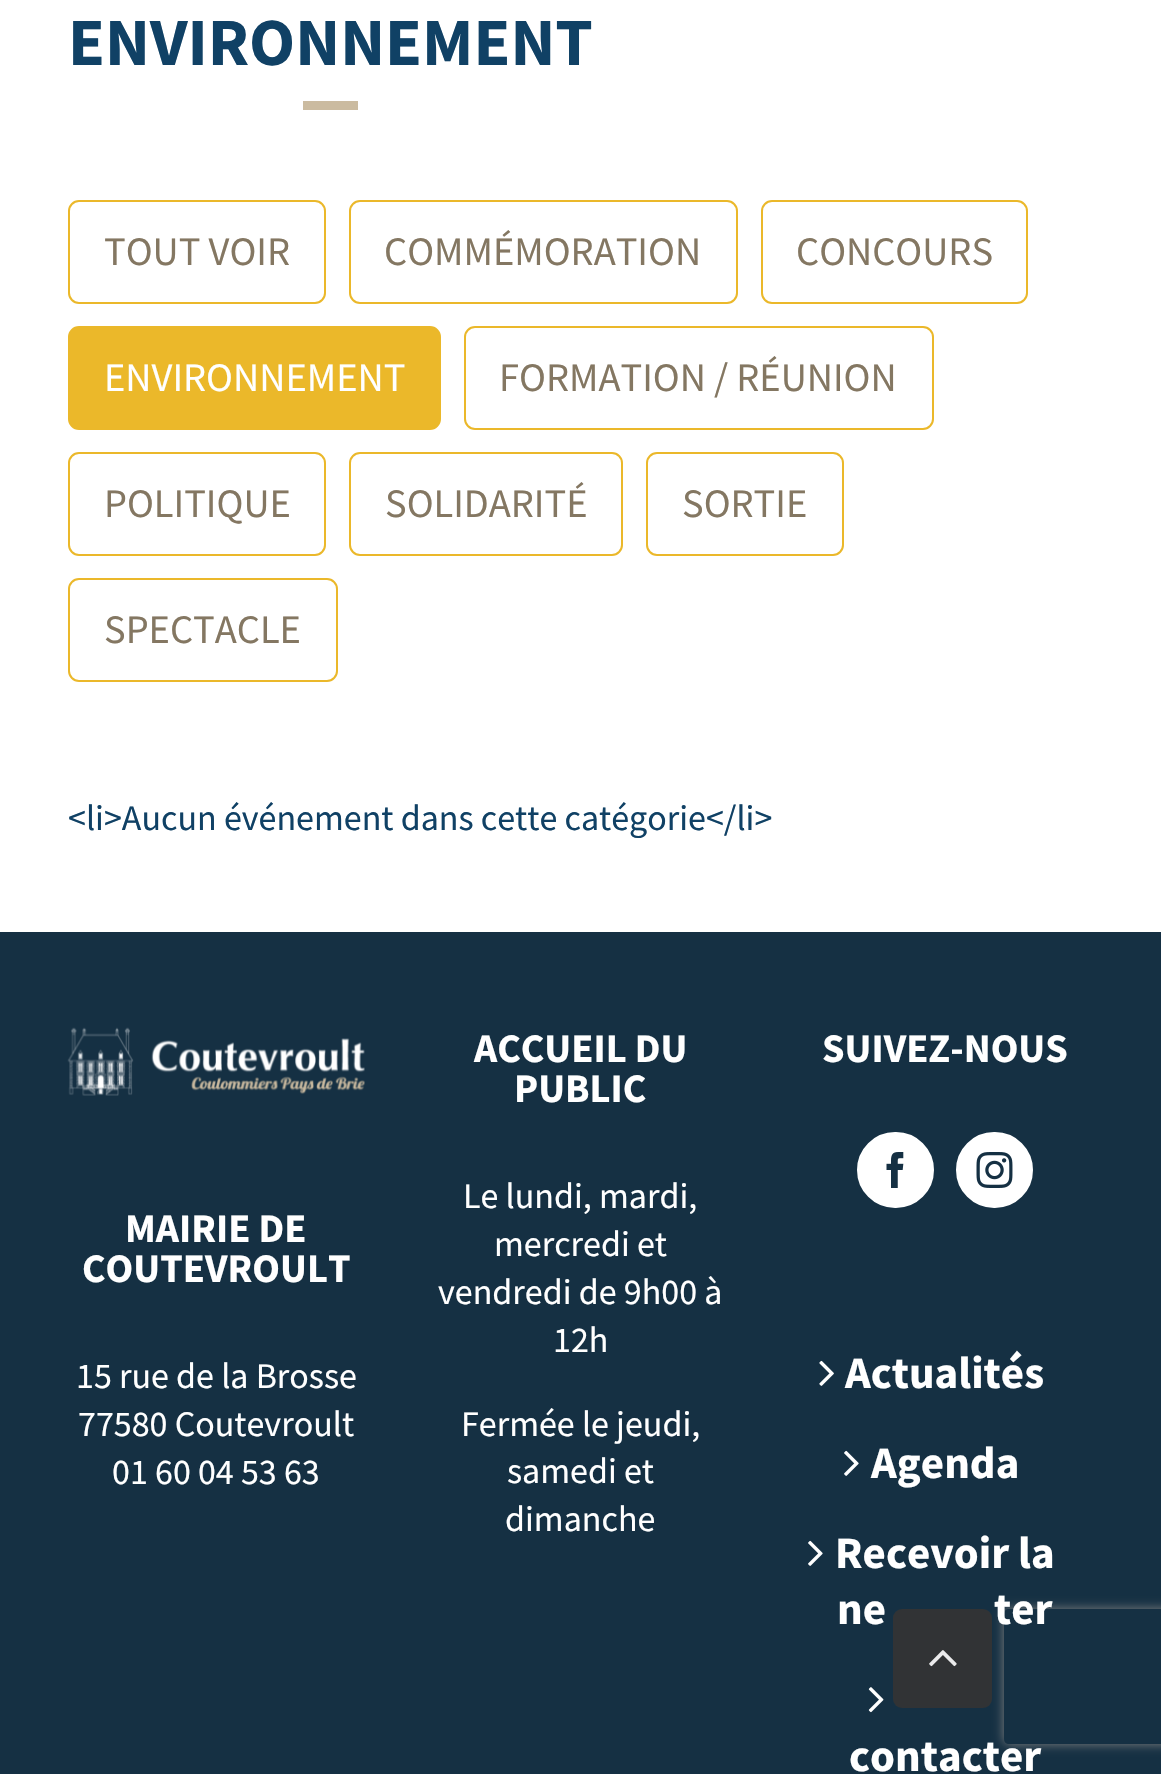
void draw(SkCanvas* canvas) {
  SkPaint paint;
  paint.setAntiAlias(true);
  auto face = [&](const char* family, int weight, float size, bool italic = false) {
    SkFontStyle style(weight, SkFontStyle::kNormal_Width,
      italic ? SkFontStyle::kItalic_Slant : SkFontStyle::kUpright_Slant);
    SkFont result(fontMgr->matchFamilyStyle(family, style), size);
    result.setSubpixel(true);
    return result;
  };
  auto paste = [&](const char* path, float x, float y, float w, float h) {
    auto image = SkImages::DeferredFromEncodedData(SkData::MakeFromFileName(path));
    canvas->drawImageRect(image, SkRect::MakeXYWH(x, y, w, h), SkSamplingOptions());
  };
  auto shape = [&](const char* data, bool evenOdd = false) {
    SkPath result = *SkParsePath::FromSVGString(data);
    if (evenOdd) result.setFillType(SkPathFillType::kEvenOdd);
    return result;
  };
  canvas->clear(0xffffffff);
  paint.setColor(0xffcbbba0);
  canvas->drawRect(SkRect::MakeXYWH(303, 101, 55, 9), paint);
  paint.setStroke(true);
  paint.setStrokeWidth(2);
  paint.setColor(0xffebb82a);
  canvas->drawRoundRect(SkRect::MakeXYWH(69, 201, 256, 102), 10, 10, paint);
  canvas->drawRoundRect(SkRect::MakeXYWH(350, 201, 387, 102), 10, 10, paint);
  canvas->drawRoundRect(SkRect::MakeXYWH(762, 201, 265, 102), 10, 10, paint);
  paint.setStroke(false);
  canvas->drawRoundRect(SkRect::MakeXYWH(69, 327, 371, 102), 10, 10, paint);
  paint.setStroke(true);
  canvas->drawRoundRect(SkRect::MakeXYWH(69, 327, 371, 102), 10, 10, paint);
  canvas->drawRoundRect(SkRect::MakeXYWH(465, 327, 468, 102), 10, 10, paint);
  canvas->drawRoundRect(SkRect::MakeXYWH(69, 453, 256, 102), 10, 10, paint);
  canvas->drawRoundRect(SkRect::MakeXYWH(350, 453, 272, 102), 10, 10, paint);
  canvas->drawRoundRect(SkRect::MakeXYWH(647, 453, 196, 102), 10, 10, paint);
  canvas->drawRoundRect(SkRect::MakeXYWH(69, 579, 268, 102), 10, 10, paint);
  paint.setStroke(false);
  paint.setColor(0xff153043);
  canvas->drawRect(SkRect::MakeXYWH(0, 932, 1161, 842), paint);
  paste("img/1.png", 67, 1027, 298, 69);
  paint.setColor(0xffffffff);
  canvas->drawRoundRect(SkRect::MakeXYWH(858, 1133, 75, 74), 37, 37, paint);
  paint.setStroke(true);
  canvas->drawRoundRect(SkRect::MakeXYWH(858, 1133, 75, 74), 37, 37, paint);
  paste("img/2.png", 886, 1152, 18, 36);
  paint.setStroke(false);
  canvas->drawRoundRect(SkRect::MakeXYWH(957, 1133, 75, 74), 37, 37, paint);
  paint.setStroke(true);
  canvas->drawRoundRect(SkRect::MakeXYWH(957, 1133, 75, 74), 37, 37, paint);
  paste("img/3.png", 976, 1152, 37, 36);
  paste("img/4.png", 819, 1360, 15, 26);
  paste("img/5.png", 844, 1450, 15, 26);
  paste("img/5.png", 808, 1540, 15, 26);
  paste("img/6.png", 868, 1687, 16, 26);
  canvas->save();
  canvas->clipPath(shape("M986 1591H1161V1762H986ZM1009 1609H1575C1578 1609 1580 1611 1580 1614V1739C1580 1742 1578 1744 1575 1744H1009C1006 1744 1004 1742 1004 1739V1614C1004 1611 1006 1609 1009 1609Z", true), true);
  paint.setStroke(false);
  paint.setColor(0xff808080);
  paint.setMaskFilter(SkMaskFilter::MakeBlur(kNormal_SkBlurStyle, 5.5f));
  canvas->drawRoundRect(SkRect::MakeXYWH(1004, 1609, 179, 135), 5, 5, paint);
  paint.setMaskFilter(nullptr);
  canvas->restore();
  paint.setColor(0xe6333333);
  canvas->drawRoundRect(SkRect::MakeXYWH(893, 1609, 99, 99), 9, 9, paint);
  paste("img/7.png", 929, 1650, 28, 17);
  auto f0 = face("Source Sans Pro", 700, 67.5f);
  paint.setColor(0xff104165);
  canvas->drawString("ENVIRONNEMENT", 68, 65, f0, paint);
  auto f1 = face("Source Sans Pro", 400, 40.5f);
  paint.setColor(0xff847762);
  {
    const struct { const char* s; float x, y; } items[] = {
      {"TOUT VOIR", 104, 265},
      {"COMMÉMORATION", 384, 265},
      {"CONCOURS", 796, 265},
    };
    for (auto [s, x, y] : items) {
      canvas->drawString(s, x, y, f1, paint);
    }
  }
  paint.setColor(0xffffffff);
  canvas->drawString("ENVIRONNEMENT", 104, 391, f1, paint);
  paint.setColor(0xff847762);
  {
    const struct { const char* s; float x, y; } items[] = {
      {"FORMATION / RÉUNION", 499, 391},
      {"POLITIQUE", 104, 517},
      {"SOLIDARITÉ", 385, 517},
      {"SORTIE", 682, 517},
      {"SPECTACLE", 104, 643},
    };
    for (auto [s, x, y] : items) {
      canvas->drawString(s, x, y, f1, paint);
    }
  }
  auto f2 = face("Source Sans Pro", 400, 36);
  paint.setColor(0xff104165);
  canvas->drawString("<li>Aucun événement dans cette catégorie</li>", 68, 830, f2, paint);
  auto f3 = face("Source Sans Pro", 700, 40.5f);
  paint.setColor(0xffffffff);
  canvas->drawString("MAIRIE DE", 125, 1242, f3, paint);
  canvas->drawString("COUTEVROULT", 82, 1282, f3, paint);
  {
    const struct { const char* s; float x, y; } items[] = {
      {"15 rue de la Brosse", 76, 1388},
      {"77580 Coutevroult", 78, 1436},
      {"01 60 04 53 63", 112, 1484},
    };
    for (auto [s, x, y] : items) {
      canvas->drawString(s, x, y, f2, paint);
    }
  }
  canvas->drawString("ACCUEIL DU", 474, 1062, f3, paint);
  canvas->drawString("PUBLIC", 514, 1102, f3, paint);
  {
    const struct { const char* s; float x, y; } items[] = {
      {"Le lundi, mardi,", 463, 1208},
      {"mercredi et", 494, 1256},
      {"vendredi de 9h00 à", 438, 1304},
      {"12h", 553, 1352},
      {"Fermée le jeudi,", 461, 1436},
      {"samedi et", 507, 1483},
      {"dimanche", 505, 1531},
    };
    for (auto [s, x, y] : items) {
      canvas->drawString(s, x, y, f2, paint);
    }
  }
  canvas->drawString("SUIVEZ-NOUS", 822, 1062, f3, paint);
  auto f4 = face("Source Sans Pro", 700, 45);
  {
    const struct { const char* s; float x, y; } items[] = {
      {"Actualités", 845, 1388},
      {"Agenda", 871, 1478},
      {"Recevoir la", 835, 1568},
      {"ne", 837, 1624},
      {"ter", 994, 1624},
      {"contacter", 849, 1771},
    };
    for (auto [s, x, y] : items) {
      canvas->drawString(s, x, y, f4, paint);
    }
  }
}
